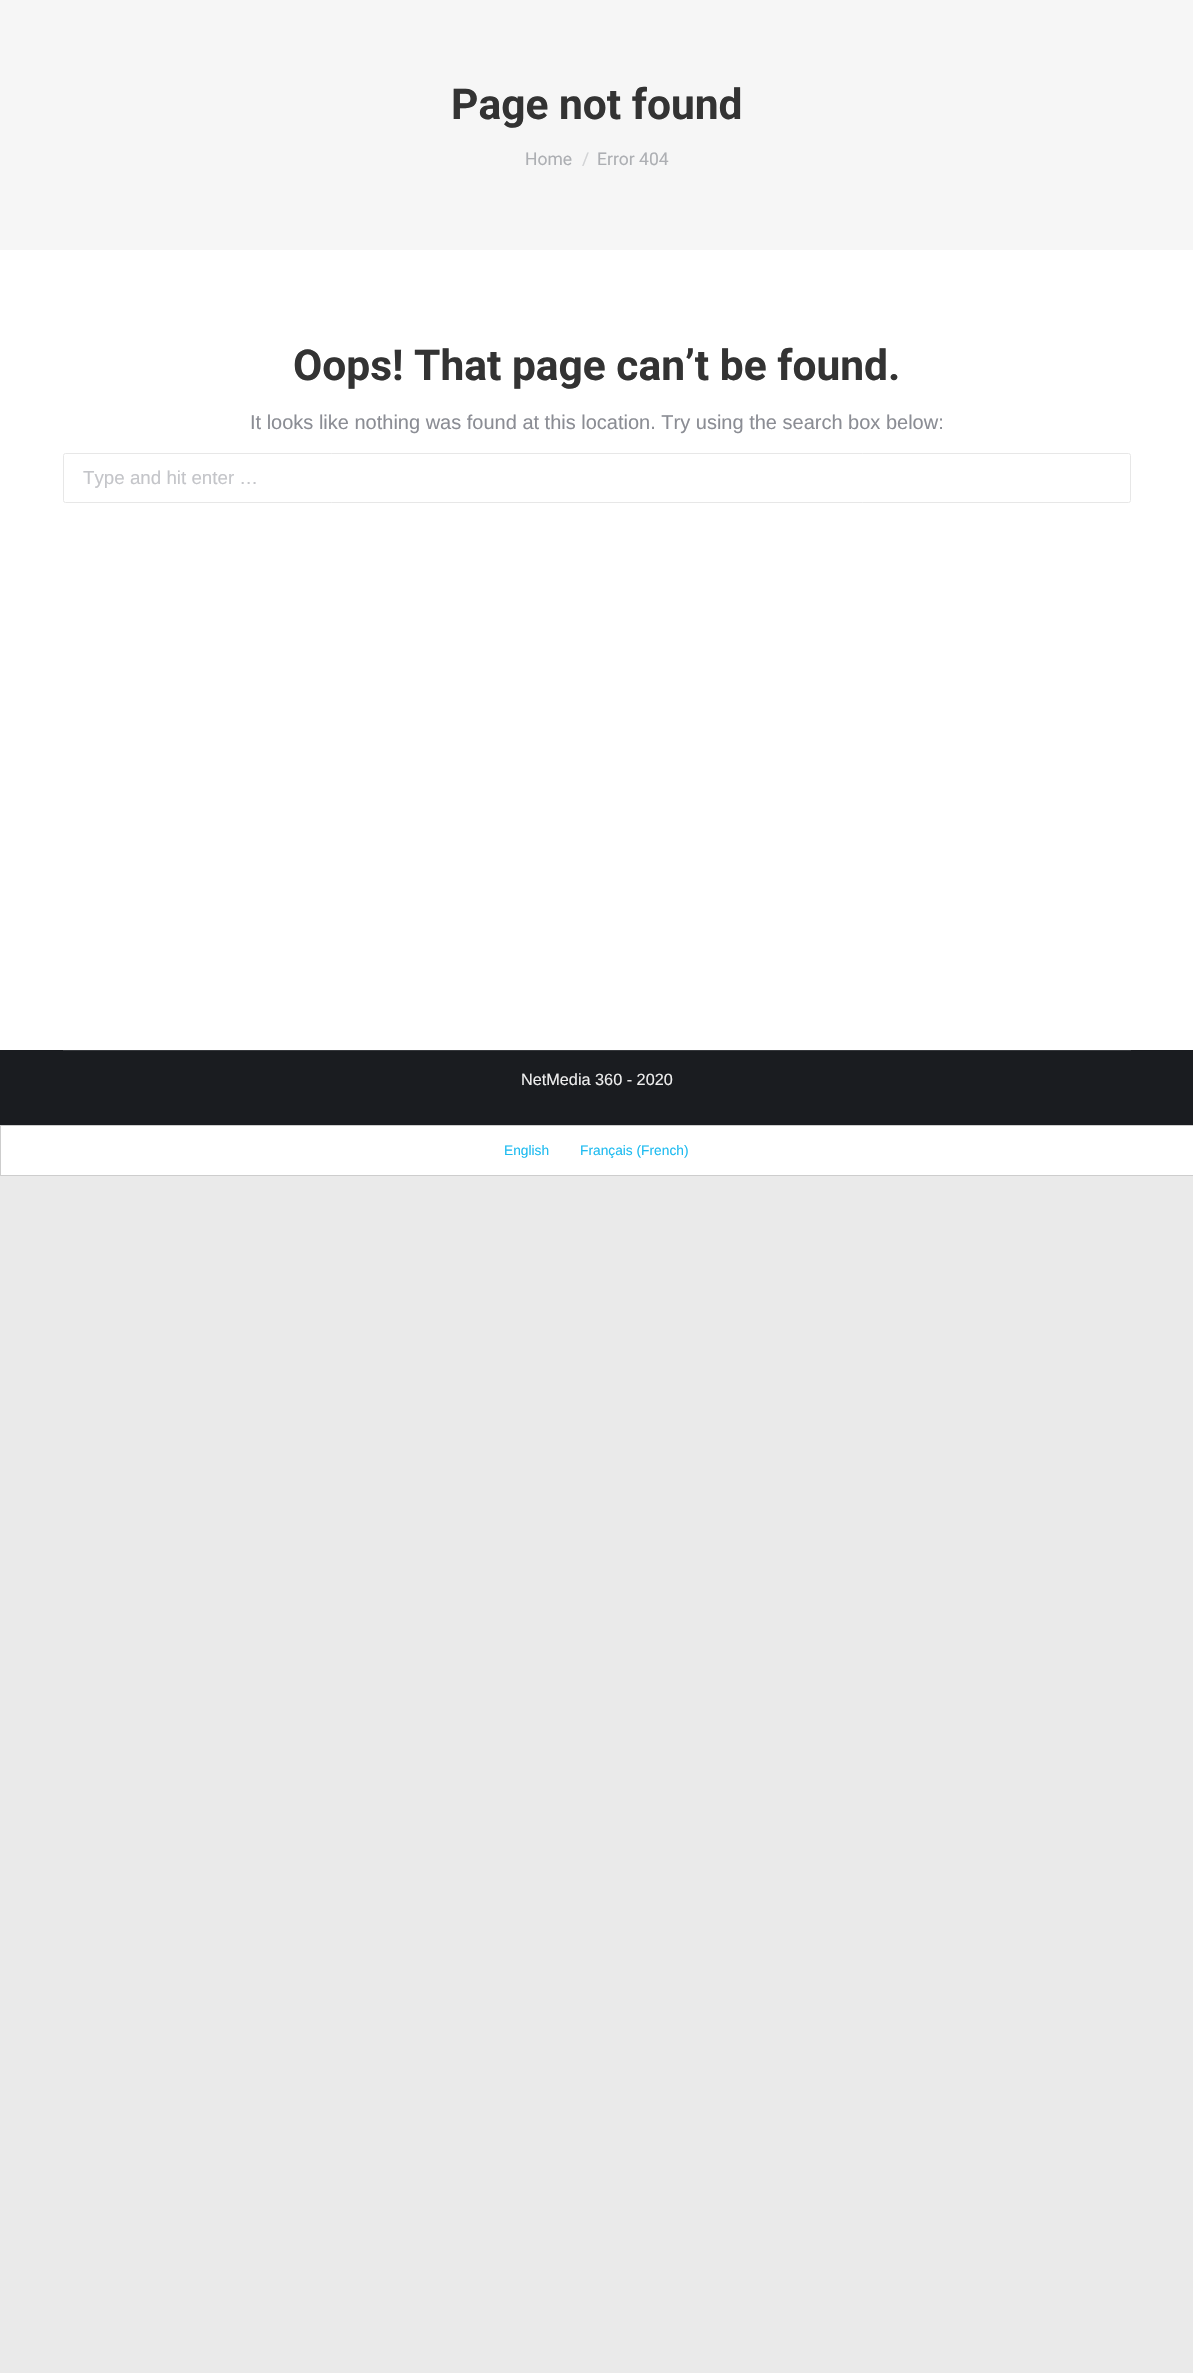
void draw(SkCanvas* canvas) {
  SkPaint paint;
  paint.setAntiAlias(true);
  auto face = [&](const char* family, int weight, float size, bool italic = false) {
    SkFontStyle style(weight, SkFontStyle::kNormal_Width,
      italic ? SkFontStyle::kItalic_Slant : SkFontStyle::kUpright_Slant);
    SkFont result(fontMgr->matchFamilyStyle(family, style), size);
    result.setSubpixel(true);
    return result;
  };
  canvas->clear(0xffeaeaea);
  paint.setColor(0xffffffff);
  canvas->drawRect(SkRect::MakeXYWH(0, 250, 1193, 800), paint);
  paint.setColor(0xfff6f6f6);
  canvas->drawRect(SkRect::MakeXYWH(0, 0, 1193, 250), paint);
  paint.setStroke(true);
  paint.setStrokeWidth(1);
  paint.setColor(0xffe7e7e7);
  canvas->drawRoundRect(SkRect::MakeXYWH(63.5f, 453.5f, 1067, 49), 2, 2, paint);
  paint.setStroke(false);
  paint.setColor(0xff1a1c20);
  canvas->drawRect(SkRect::MakeXYWH(0, 1050, 1193, 75), paint);
  paint.setColor(0xff35373b);
  canvas->drawRect(SkRect::MakeXYWH(63, 1050, 1068, 1), paint);
  paint.setColor(0xffffffff);
  canvas->drawRect(SkRect::MakeXYWH(0.5f, 1125.5f, 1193, 50), paint);
  paint.setStroke(true);
  paint.setColor(0xffcdcdcd);
  canvas->drawRect(SkRect::MakeXYWH(0.5f, 1125.5f, 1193, 50), paint);
  auto f0 = face("Roboto", 700, 42.5f);
  paint.setStroke(false);
  paint.setColor(0xff333333);
  canvas->drawString("Page not found", 451, 119, f0, paint);
  auto f1 = face("Roboto", 400, 17.5f);
  paint.setColor(0xffadafb3);
  canvas->drawString("Home", 525, 165, f1, paint);
  paint.setColor(0xffd2d3d5);
  canvas->drawString("/", 582, 165, f1, paint);
  paint.setColor(0xffadafb3);
  canvas->drawString("Error 404", 597, 165, f1, paint);
  paint.setColor(0xff333333);
  canvas->drawString("Oops! That page can’t be found.", 293, 380, f0, paint);
  auto f2 = face("Liberation Sans", 400, 20);
  paint.setColor(0xff8b8d94);
  canvas->drawString("It looks like nothing was found at this location. Try using the search box below:", 250, 429, f2, paint);
  auto f3 = face("Liberation Sans", 400, 18.75f);
  paint.setColor(0xffc4c5c9);
  canvas->drawString("Type and hit enter …", 83, 484, f3, paint);
  auto f4 = face("Liberation Sans", 400, 16.25f);
  paint.setColor(0xffeeeeee);
  canvas->drawString("NetMedia 360 - 2020", 521, 1085, f4, paint);
  auto f5 = face("Liberation Sans", 400, 13.75f);
  paint.setColor(0xff1ebbf0);
  canvas->drawString("English", 504, 1155, f5, paint);
  canvas->drawString("Français (French)", 580, 1155, f5, paint);
}
